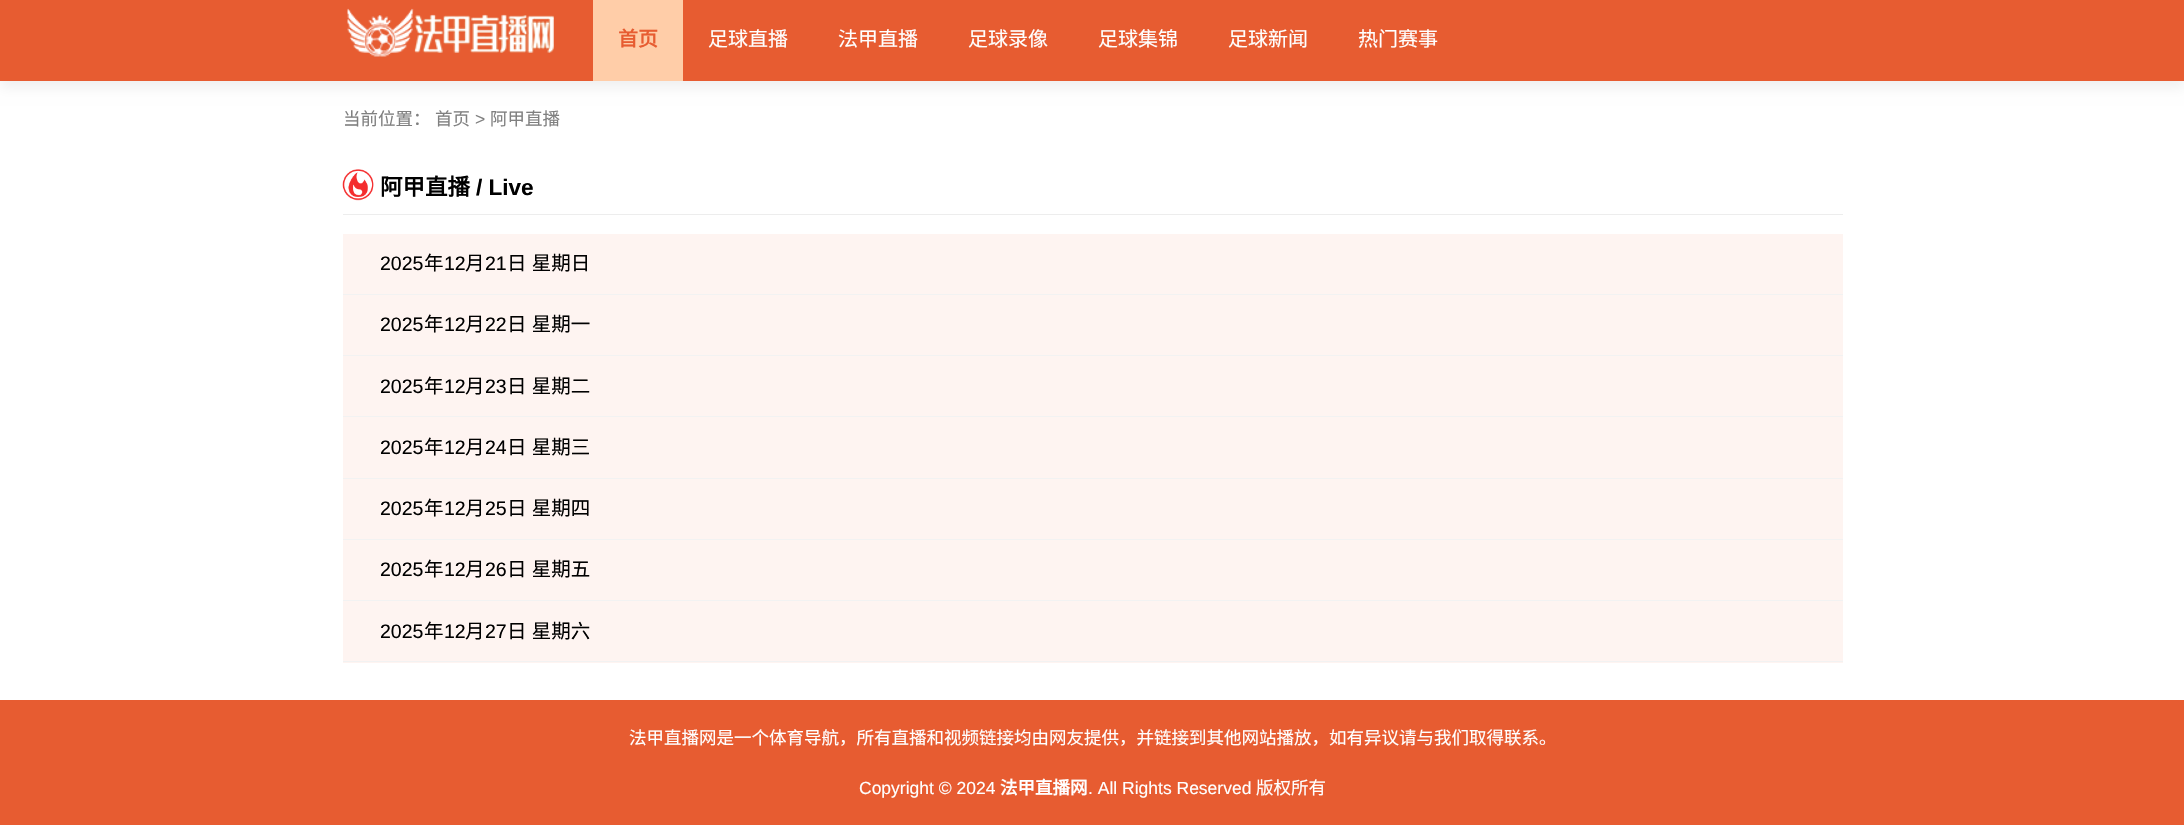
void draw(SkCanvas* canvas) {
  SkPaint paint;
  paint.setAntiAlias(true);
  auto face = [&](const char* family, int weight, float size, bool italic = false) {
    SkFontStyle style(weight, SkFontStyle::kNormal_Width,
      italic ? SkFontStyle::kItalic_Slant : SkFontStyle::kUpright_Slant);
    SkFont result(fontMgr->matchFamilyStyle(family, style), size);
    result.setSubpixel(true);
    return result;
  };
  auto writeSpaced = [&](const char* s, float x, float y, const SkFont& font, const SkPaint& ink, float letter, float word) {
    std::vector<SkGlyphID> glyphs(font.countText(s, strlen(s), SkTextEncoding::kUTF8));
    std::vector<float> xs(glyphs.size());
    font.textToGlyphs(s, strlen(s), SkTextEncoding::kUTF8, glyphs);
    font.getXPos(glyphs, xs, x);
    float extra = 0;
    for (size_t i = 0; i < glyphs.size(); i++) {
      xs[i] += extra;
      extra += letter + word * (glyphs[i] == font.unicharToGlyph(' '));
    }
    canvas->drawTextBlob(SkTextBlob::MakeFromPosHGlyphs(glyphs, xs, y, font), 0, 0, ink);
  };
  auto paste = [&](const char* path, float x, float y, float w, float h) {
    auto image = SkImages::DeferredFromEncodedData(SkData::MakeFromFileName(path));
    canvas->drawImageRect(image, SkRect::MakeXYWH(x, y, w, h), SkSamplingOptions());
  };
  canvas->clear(0xffffffff);
  paint.setColor(0xfff0f0f0);
  paint.setMaskFilter(SkMaskFilter::MakeBlur(kNormal_SkBlurStyle, 6));
  canvas->drawRect(SkRect::MakeXYWH(0, 5, 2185, 83), paint);
  paint.setMaskFilter(nullptr);
  paint.setColor(0xffe75c31);
  canvas->drawRect(SkRect::MakeXYWH(0, 0, 2184, 81), paint);
  paste("img/1.png", 347, 8, 207, 49);
  paint.setColor(0xffffcda8);
  canvas->drawRect(SkRect::MakeXYWH(593, 0, 90, 81), paint);
  paint.setColor(0xffededed);
  canvas->drawRect(SkRect::MakeXYWH(343, 214, 1500, 1), paint);
  paste("img/2.png", 342, 169, 32, 32);
  {
    const struct { float x, y, w, h; SkColor color; } items[] = {
      {343, 234, 1500, 60, 0xfffef4f1},
      {343, 294, 1500, 1, 0xfff2f2f2},
      {343, 295, 1500, 60, 0xfffef4f1},
      {343, 355, 1500, 1, 0xfff2f2f2},
      {343, 356, 1500, 122, 0xfffef4f1},
      {343, 416, 1500, 1, 0xfff2f2f2},
      {343, 478, 1500, 1, 0xfff2f2f2},
      {343, 479, 1500, 60, 0xfffef4f1},
      {343, 539, 1500, 1, 0xfff2f2f2},
      {343, 540, 1500, 60, 0xfffef4f1},
      {343, 600, 1500, 1, 0xfff2f2f2},
      {343, 601, 1500, 62, 0xfffef4f1},
      {343, 661, 1500, 1, 0xfff2f2f2},
      {0, 700, 2184, 125, 0xffe75c31},
    };
    for (auto [x, y, w, h, color] : items) {
      paint.setColor(color);
      canvas->drawRect(SkRect::MakeXYWH(x, y, w, h), paint);
    }
  }
  auto f0 = face("Noto Sans CJK SC", 700, 20);
  canvas->drawString("首页", 618, 46, f0, paint);
  auto f1 = face("Noto Sans CJK SC", 400, 20);
  paint.setColor(0xffffffff);
  {
    const struct { const char* s; float x, y; } items[] = {
      {"足球直播", 708, 46},
      {"法甲直播", 838, 46},
      {"足球录像", 968, 46},
      {"足球集锦", 1098, 46},
      {"足球新闻", 1228, 46},
      {"热门赛事", 1358, 46},
    };
    for (auto [s, x, y] : items) {
      canvas->drawString(s, x, y, f1, paint);
    }
  }
  auto f2 = face("Noto Sans CJK SC", 400, 17.5f);
  paint.setColor(0xff808080);
  canvas->drawString("当前位置：", 343, 125, f2, paint);
  canvas->drawString("首页", 435, 125, f2, paint);
  auto f3 = face("Liberation Sans", 400, 17.5f);
  canvas->drawString(">", 475, 125, f3, paint);
  canvas->drawString("阿甲直播", 490, 125, f2, paint);
  auto f4 = face("Noto Sans CJK SC", 700, 22.5f);
  paint.setColor(0xff000000);
  canvas->drawString("阿甲直播", 380, 195, f4, paint);
  auto f5 = face("Liberation Sans", 700, 22.5f);
  canvas->drawString("/ Live", 476, 195, f5, paint);
  auto f6 = face("Liberation Sans", 400, 19.5f);
  canvas->drawString("2025", 380, 270, f6, paint);
  auto f7 = face("Noto Sans CJK SC", 400, 19.5f);
  canvas->drawString("年", 424, 270, f7, paint);
  canvas->drawString("12", 444, 270, f6, paint);
  canvas->drawString("月", 465, 270, f7, paint);
  canvas->drawString("21", 485, 270, f6, paint);
  writeSpaced("日 星期日", 507, 270, f7, paint, 0, 1);
  canvas->drawString("2025", 380, 331, f6, paint);
  canvas->drawString("年", 424, 331, f7, paint);
  canvas->drawString("12", 444, 331, f6, paint);
  canvas->drawString("月", 465, 331, f7, paint);
  canvas->drawString("22", 485, 331, f6, paint);
  writeSpaced("日 星期一", 507, 331, f7, paint, 0, 1);
  canvas->drawString("2025", 380, 393, f6, paint);
  canvas->drawString("年", 424, 393, f7, paint);
  canvas->drawString("12", 444, 393, f6, paint);
  canvas->drawString("月", 465, 393, f7, paint);
  canvas->drawString("23", 485, 393, f6, paint);
  writeSpaced("日 星期二", 507, 393, f7, paint, 0, 1);
  canvas->drawString("2025", 380, 454, f6, paint);
  canvas->drawString("年", 424, 454, f7, paint);
  canvas->drawString("12", 444, 454, f6, paint);
  canvas->drawString("月", 465, 454, f7, paint);
  canvas->drawString("24", 485, 454, f6, paint);
  writeSpaced("日 星期三", 507, 454, f7, paint, 0, 1);
  canvas->drawString("2025", 380, 515, f6, paint);
  canvas->drawString("年", 424, 515, f7, paint);
  canvas->drawString("12", 444, 515, f6, paint);
  canvas->drawString("月", 465, 515, f7, paint);
  canvas->drawString("25", 485, 515, f6, paint);
  writeSpaced("日 星期四", 507, 515, f7, paint, 0, 1);
  canvas->drawString("2025", 380, 576, f6, paint);
  canvas->drawString("年", 424, 576, f7, paint);
  canvas->drawString("12", 444, 576, f6, paint);
  canvas->drawString("月", 465, 576, f7, paint);
  canvas->drawString("26", 485, 576, f6, paint);
  writeSpaced("日 星期五", 507, 576, f7, paint, 0, 1);
  canvas->drawString("2025", 380, 638, f6, paint);
  canvas->drawString("年", 424, 638, f7, paint);
  canvas->drawString("12", 444, 638, f6, paint);
  canvas->drawString("月", 465, 638, f7, paint);
  canvas->drawString("27", 485, 638, f6, paint);
  writeSpaced("日 星期六", 507, 638, f7, paint, 0, 1);
  paint.setColor(0xffffffff);
  canvas->drawString("法甲直播网是一个体育导航，所有直播和视频链接均由网友提供，并链接到其他网站播放，如有异议请与我们取得联系。", 629, 744, f2, paint);
  canvas->drawString("Copyright © 2024", 859, 794, f3, paint);
  auto f8 = face("Noto Sans CJK SC", 700, 17.5f);
  canvas->drawString("法甲直播网", 1000, 794, f8, paint);
  canvas->drawString(". All Rights Reserved", 1088, 794, f3, paint);
  canvas->drawString("版权所有", 1256, 794, f2, paint);
}
